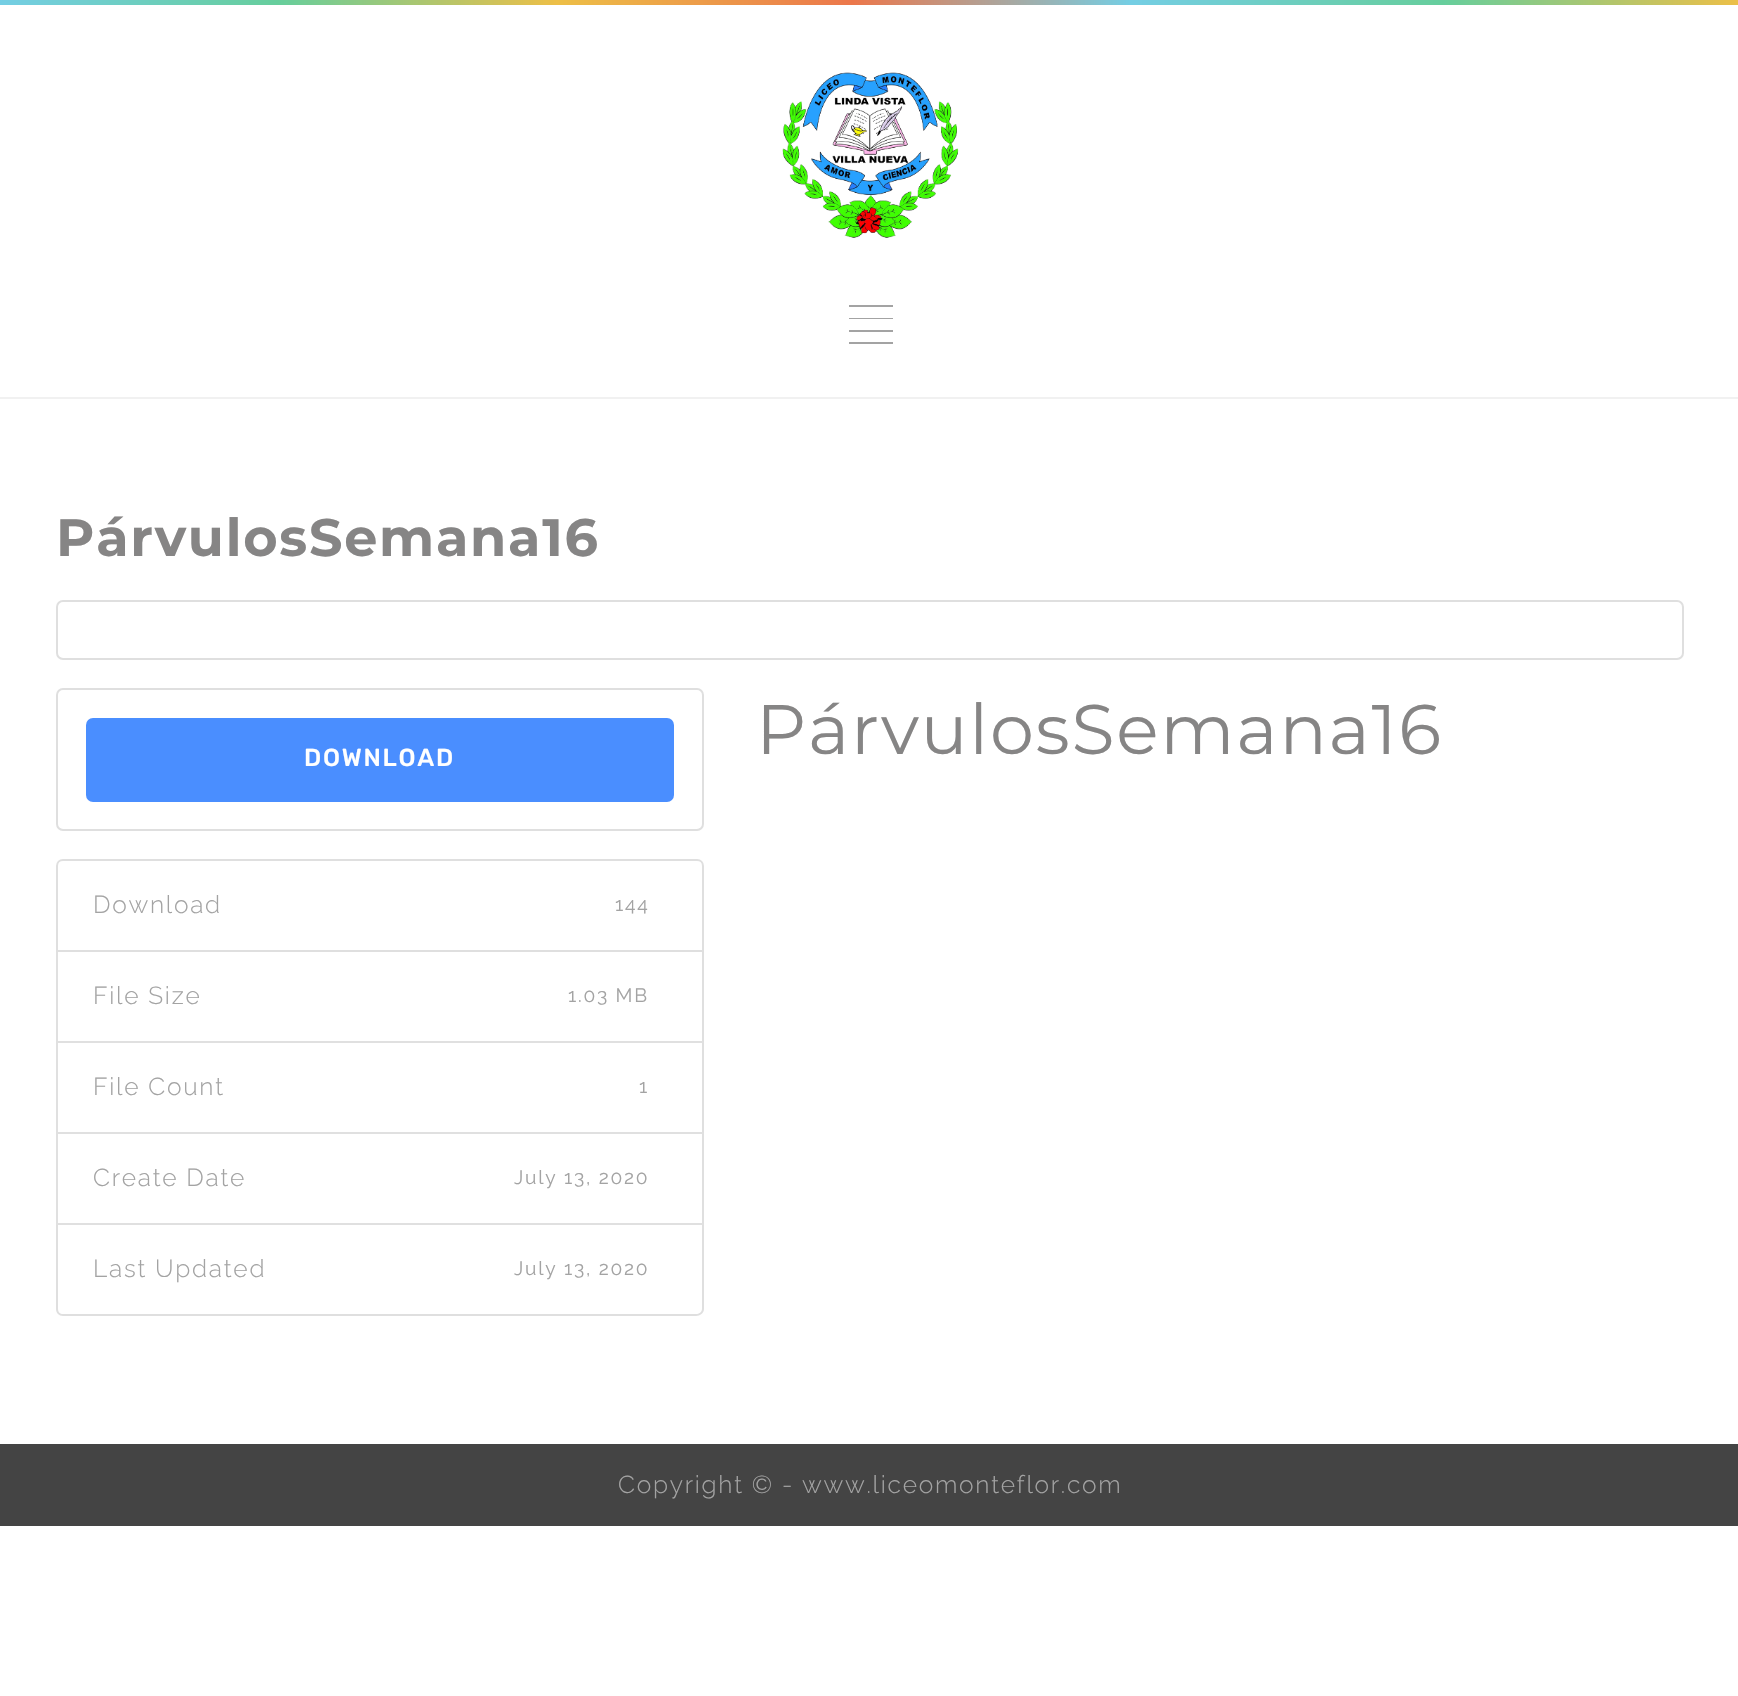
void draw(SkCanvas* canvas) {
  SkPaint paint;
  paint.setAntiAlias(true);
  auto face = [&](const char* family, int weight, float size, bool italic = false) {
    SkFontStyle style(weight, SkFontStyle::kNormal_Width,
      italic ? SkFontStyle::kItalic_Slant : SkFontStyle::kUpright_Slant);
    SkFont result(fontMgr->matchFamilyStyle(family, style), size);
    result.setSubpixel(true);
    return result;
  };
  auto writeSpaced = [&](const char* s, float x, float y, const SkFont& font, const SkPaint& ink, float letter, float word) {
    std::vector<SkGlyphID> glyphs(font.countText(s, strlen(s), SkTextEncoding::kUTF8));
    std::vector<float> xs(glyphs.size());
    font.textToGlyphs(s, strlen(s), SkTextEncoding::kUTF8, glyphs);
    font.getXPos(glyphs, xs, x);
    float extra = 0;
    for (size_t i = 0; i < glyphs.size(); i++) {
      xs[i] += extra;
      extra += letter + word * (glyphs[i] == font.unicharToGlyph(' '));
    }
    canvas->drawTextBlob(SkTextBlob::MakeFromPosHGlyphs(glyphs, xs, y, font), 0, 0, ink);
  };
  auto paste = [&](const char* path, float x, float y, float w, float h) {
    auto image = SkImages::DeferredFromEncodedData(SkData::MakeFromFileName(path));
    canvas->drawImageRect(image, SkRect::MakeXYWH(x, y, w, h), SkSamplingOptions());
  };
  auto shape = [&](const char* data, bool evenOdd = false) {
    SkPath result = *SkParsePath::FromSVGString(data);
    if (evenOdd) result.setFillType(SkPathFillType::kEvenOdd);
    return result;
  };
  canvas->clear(0xffffffff);
  paint.setColor(0xfff1f1f1);
  canvas->drawRect(SkRect::MakeXYWH(0, 397, 1738, 2), paint);
  {
    const SkColor colors[] = {0xff74cee4, 0xff66ce9c, 0xffedbf47, 0xffec774b, 0xff74cee4, 0xff66ce9c, 0xffedbf47};
    const float stops[] = {0, 0.16f, 0.32f, 0.49f, 0.65f, 0.83f, 1};
    const SkPoint ends[] = {{0, 2.6f}, {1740, 2.6f}};
    paint.setShader(SkGradientShader::MakeLinear(ends, colors, stops, 7, SkTileMode::kClamp));
    paint.setAlpha(255);
  }
  canvas->drawRect(SkRect::MakeXYWH(0, 0, 1738, 5), paint);
  paste("img/1.png", 782, 72, 177, 166);
  paint.setShader(nullptr);
  {
    const struct { float x, y, w, h; SkColor color; } items[] = {
      {849, 305, 44, 2, 0xffa3a3a3},
      {849, 318, 44, 1, 0xffa3a3a3},
      {849, 330, 44, 2, 0xffa3a3a3},
      {849, 342, 44, 2, 0xffa3a3a3},
    };
    for (auto [x, y, w, h, color] : items) {
      paint.setColor(color);
      canvas->drawRect(SkRect::MakeXYWH(x, y, w, h), paint);
    }
  }
  paint.setStroke(true);
  paint.setStrokeWidth(2);
  paint.setColor(0xffdfdfdf);
  canvas->drawRoundRect(SkRect::MakeXYWH(57, 601, 1626, 58), 6, 6, paint);
  canvas->drawRoundRect(SkRect::MakeXYWH(57, 689, 646, 141), 6, 6, paint);
  paint.setStroke(false);
  paint.setColor(0xff4a8eff);
  canvas->drawRoundRect(SkRect::MakeXYWH(86, 718, 588, 84), 7, 7, paint);
  paint.setStroke(true);
  paint.setColor(0xffdfdfdf);
  canvas->drawPath(shape("M63 860H697C700.5 860 703 862.5 703 866V951H57V866C57 862.5 59.5 860 63 860Z"), paint);
  paint.setStroke(false);
  canvas->drawPath(shape("M704 952V1043L702 1041V952Z"), paint);
  paint.setColor(0x1f000000);
  canvas->drawPath(shape("M704 1043H56L58 1041H702Z"), paint);
  canvas->drawPath(shape("M56 1043V952H58V1041Z"), paint);
  paint.setColor(0xffdfdfdf);
  canvas->drawPath(shape("M704 1043V1134L702 1132V1043Z"), paint);
  paint.setColor(0x1f000000);
  canvas->drawPath(shape("M704 1134H56L58 1132H702Z"), paint);
  canvas->drawPath(shape("M56 1134V1043H58V1132Z"), paint);
  paint.setColor(0xffdfdfdf);
  canvas->drawPath(shape("M704 1134V1225L702 1223V1134Z"), paint);
  paint.setColor(0x1f000000);
  canvas->drawPath(shape("M704 1225H56L58 1223H702Z"), paint);
  canvas->drawPath(shape("M56 1225V1134H58V1223Z"), paint);
  paint.setColor(0xffdfdfdf);
  canvas->drawPath(shape("M56 1225H704V1309C704 1313 700 1316 696 1316H63C59 1316 56 1313 56 1309ZM58 1225H702V1309C702 1312 699 1314 696 1314H63C60 1314 58 1312 58 1309Z", true), paint);
  paint.setColor(0xff444444);
  canvas->drawRect(SkRect::MakeXYWH(0, 1444, 1738, 82), paint);
  auto f0 = face("Montserrat", 700, 52.5f);
  paint.setColor(0xff868585);
  writeSpaced("PárvulosSemana16", 56, 556, f0, paint, 1.75f, 0);
  auto f1 = face("Montserrat", 400, 70);
  writeSpaced("PárvulosSemana16", 756, 754, f1, paint, 1.75f, 0);
  auto f2 = face("Rubik", 500, 24.5f);
  paint.setColor(0xffffffff);
  writeSpaced("DOWNLOAD", 304, 766, f2, paint, 1.75f, 0);
  auto f3 = face("Raleway", 300, 24.5f);
  paint.setColor(0xffa3a3a3);
  writeSpaced("Download", 93, 913, f3, paint, 1.75f, 0);
  auto f4 = face("Raleway", 400, 19.25f);
  writeSpaced("144", 615, 911, f4, paint, 1.75f, 0);
  writeSpaced("File Size", 93, 1004, f3, paint, 1.75f, 0);
  writeSpaced("1.03 MB", 568, 1002, f4, paint, 1.75f, 0);
  writeSpaced("File Count", 93, 1095, f3, paint, 1.75f, 0);
  writeSpaced("1", 639, 1093, f4, paint, 1.75f, 0);
  writeSpaced("Create Date", 93, 1186, f3, paint, 1.75f, 0);
  writeSpaced("July 13, 2020", 514, 1184, f4, paint, 1.75f, 0);
  writeSpaced("Last Updated", 93, 1277, f3, paint, 1.75f, 0);
  writeSpaced("July 13, 2020", 514, 1275, f4, paint, 1.75f, 0);
  writeSpaced("Copyright © - www.liceomonteflor.com", 618, 1493, f3, paint, 1.75f, 0);
}
